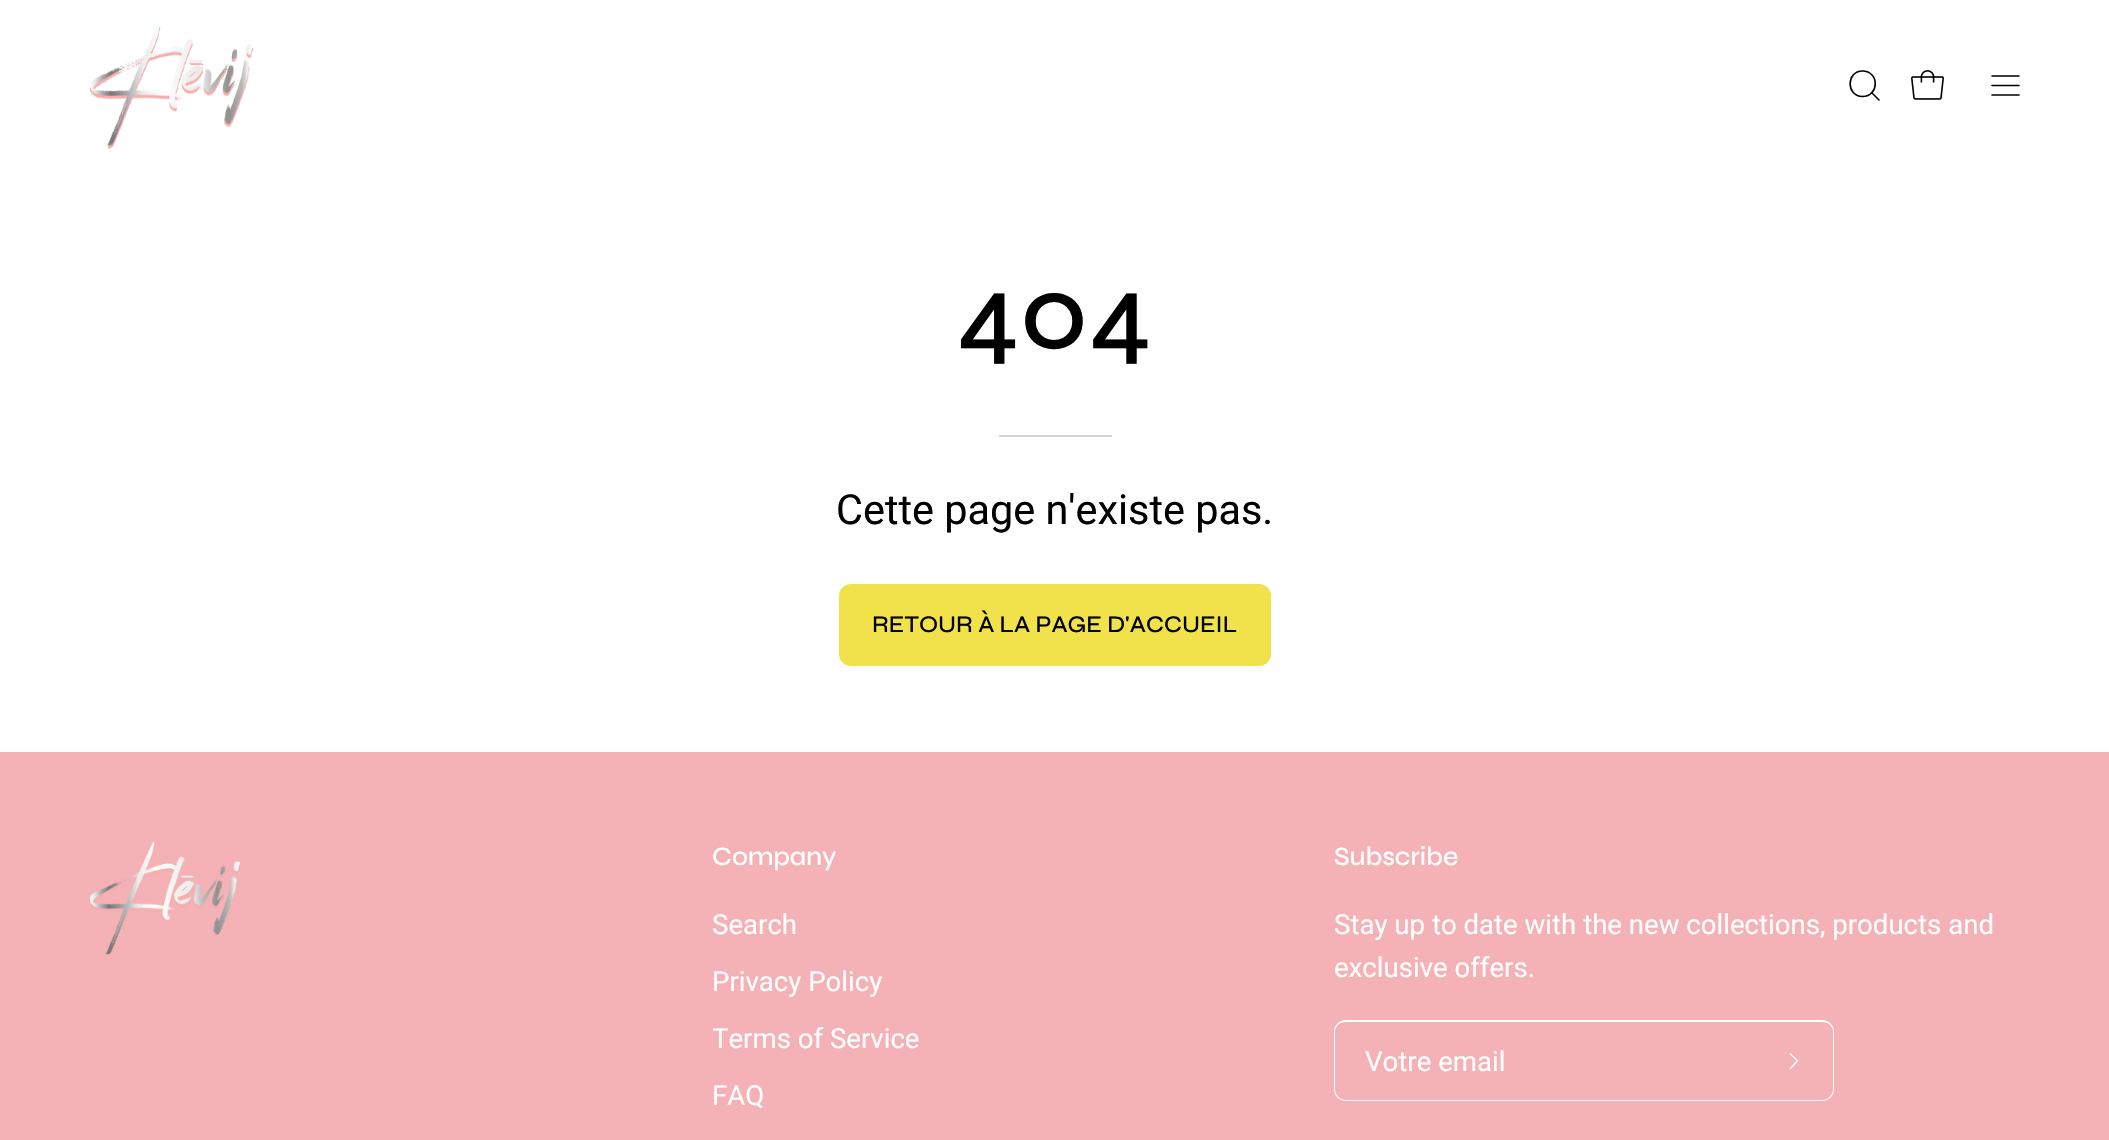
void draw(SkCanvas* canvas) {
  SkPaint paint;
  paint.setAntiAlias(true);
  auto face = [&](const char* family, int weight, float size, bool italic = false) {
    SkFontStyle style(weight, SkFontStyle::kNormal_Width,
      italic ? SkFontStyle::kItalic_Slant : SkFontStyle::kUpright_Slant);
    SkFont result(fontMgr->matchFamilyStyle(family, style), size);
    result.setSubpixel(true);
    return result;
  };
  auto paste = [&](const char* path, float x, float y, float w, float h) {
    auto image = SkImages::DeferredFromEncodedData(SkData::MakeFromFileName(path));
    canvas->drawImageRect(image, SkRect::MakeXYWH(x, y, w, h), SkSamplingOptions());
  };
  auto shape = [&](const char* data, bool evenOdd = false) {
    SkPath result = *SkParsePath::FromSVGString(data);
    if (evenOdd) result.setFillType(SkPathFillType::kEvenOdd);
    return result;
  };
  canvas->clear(0xffffffff);
  paste("img/1.png", 90, 23, 164, 126);
  paint.setStroke(true);
  paint.setStrokeWidth(1.6f);
  paint.setStrokeCap(SkPaint::kRound_Cap);
  paint.setStrokeJoin(SkPaint::kRound_Join);
  paint.setColor(0xff000000);
  canvas->drawPath(shape("M1862.5 96.5C1879.5 96.5 1879.5 71 1862.5 71C1846 71 1846 96.5 1862.5 96.5ZM1871.5 92.5L1879 100"), paint);
  paste("img/2.png", 1911, 70, 33, 30);
  canvas->drawPath(shape("M1992 85.5H2019M1992 76H2019M1992 95H2019"), paint);
  paint.setStroke(false);
  paint.setColor(0xffd3d3d3);
  canvas->drawRect(SkRect::MakeXYWH(999, 435, 113, 2), paint);
  paint.setColor(0xfff1e14a);
  canvas->drawRoundRect(SkRect::MakeXYWH(839, 584, 432, 82), 12, 12, paint);
  paint.setColor(0xfff5b2b6);
  canvas->drawRect(SkRect::MakeXYWH(0, 752, 2109, 388), paint);
  paste("img/3.png", 90, 841, 150, 116);
  paint.setColor(0xffffffff);
  canvas->drawPath(shape("M1346 1020H1754V1101H1346C1339 1101 1334 1096 1334 1089V1032C1334 1025 1339 1020 1346 1020ZM1346 1022H1754V1100H1346C1340 1100 1335 1095 1335 1089V1032C1335 1026 1340 1022 1346 1022Z", true), paint);
  canvas->drawPath(shape("M1754 1020H1822C1829 1020 1834 1025 1834 1032V1089C1834 1096 1829 1101 1822 1101H1754ZM1754 1022H1822C1828 1022 1833 1026 1833 1032V1089C1833 1095 1828 1100 1822 1100H1754Z", true), paint);
  paint.setStroke(true);
  paint.setStrokeWidth(1.4f);
  canvas->drawPath(shape("M1790.5 1054L1797.5 1061L1790.5 1068.5"), paint);
  auto f0 = face("Syne", 500, 108);
  paint.setStroke(false);
  paint.setColor(0xff000000);
  canvas->drawString("404", 956, 348, f0, paint);
  auto f1 = face("Roboto", 400, 41.4f);
  canvas->drawString("Cette page n'existe pas.", 836, 524, f1, paint);
  auto f2 = face("Syne", 500, 24);
  canvas->drawString("RETOUR À LA PAGE D'ACCUEIL", 872, 632, f2, paint);
  auto f3 = face("Syne", 500, 26.5f);
  paint.setColor(0xffffffff);
  canvas->drawString("Company", 712, 865, f3, paint);
  auto f4 = face("Roboto", 400, 27.6f);
  canvas->drawString("Search", 712, 934, f4, paint);
  canvas->drawString("Privacy Policy", 712, 991, f4, paint);
  canvas->save();
  canvas->clipRect(SkRect::MakeXYWH(713, 905, 561, 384));
  canvas->drawString("Terms of Service", 712, 1048, f4, paint);
  canvas->restore();
  canvas->drawString("FAQ", 712, 1105, f4, paint);
  canvas->drawString("Subscribe", 1334, 865, f3, paint);
  {
    const struct { const char* s; float x, y; } items[] = {
      {"Stay up to date with the new collections, products and", 1334, 934},
      {"exclusive offers.", 1334, 977},
      {"Votre email", 1365, 1071},
    };
    for (auto [s, x, y] : items) {
      canvas->drawString(s, x, y, f4, paint);
    }
  }
}
